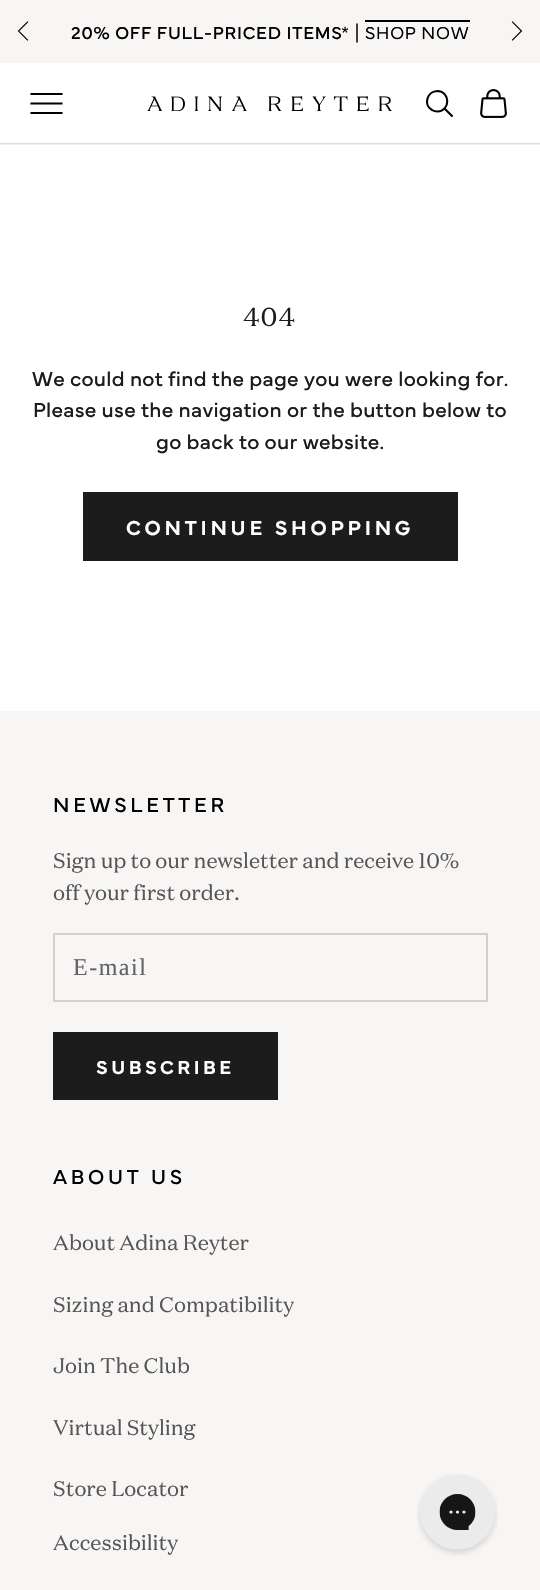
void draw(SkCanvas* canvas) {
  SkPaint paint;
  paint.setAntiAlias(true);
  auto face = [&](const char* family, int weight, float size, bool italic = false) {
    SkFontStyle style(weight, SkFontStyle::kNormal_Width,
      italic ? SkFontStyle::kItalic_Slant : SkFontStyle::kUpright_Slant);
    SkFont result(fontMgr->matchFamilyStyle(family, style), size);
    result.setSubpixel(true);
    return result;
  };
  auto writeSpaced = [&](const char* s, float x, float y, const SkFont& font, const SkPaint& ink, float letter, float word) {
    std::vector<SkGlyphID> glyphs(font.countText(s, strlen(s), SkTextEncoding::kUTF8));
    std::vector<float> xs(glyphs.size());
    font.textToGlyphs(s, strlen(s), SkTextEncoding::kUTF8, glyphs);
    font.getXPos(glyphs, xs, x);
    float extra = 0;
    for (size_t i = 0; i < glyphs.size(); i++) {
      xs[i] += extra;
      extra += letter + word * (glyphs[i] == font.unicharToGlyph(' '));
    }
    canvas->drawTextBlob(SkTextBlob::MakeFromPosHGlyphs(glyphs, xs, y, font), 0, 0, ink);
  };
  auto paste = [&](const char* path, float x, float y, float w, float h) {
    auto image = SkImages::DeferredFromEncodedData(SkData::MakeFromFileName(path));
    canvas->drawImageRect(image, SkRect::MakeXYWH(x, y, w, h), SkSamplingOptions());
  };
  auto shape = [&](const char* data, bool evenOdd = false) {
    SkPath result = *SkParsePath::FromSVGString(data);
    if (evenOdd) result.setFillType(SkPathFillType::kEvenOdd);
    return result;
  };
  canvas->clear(0xffffffff);
  paint.setColor(0xfff8f6f5);
  canvas->drawRect(SkRect::MakeXYWH(0, 0, 540, 63), paint);
  paint.setStroke(true);
  paint.setStrokeWidth(1.1f);
  paint.setStrokeCap(SkPaint::kSquare_Cap);
  paint.setColor(0xff000000);
  canvas->drawPath(shape("M27.5 22L18.5 31L27.5 40"), paint);
  paint.setStroke(false);
  canvas->drawRect(SkRect::MakeXYWH(365, 20, 105, 2), paint);
  paint.setStroke(true);
  canvas->drawPath(shape("M512.5 40L521.5 31L512.5 22"), paint);
  paint.setStroke(false);
  paint.setColor(0xffdddddd);
  canvas->drawRect(SkRect::MakeXYWH(0, 143, 540, 1), paint);
  paint.setColor(0xffeeeeee);
  canvas->drawRect(SkRect::MakeXYWH(0, 144, 540, 1), paint);
  paint.setStroke(true);
  paint.setStrokeWidth(2.1f);
  paint.setColor(0xff000000);
  canvas->drawPath(shape("M31.5 113H61.5M31.5 103.5H61.5M31.5 94H61.5"), paint);
  paste("img/1.png", 147, 96, 245, 15);
  paint.setStrokeCap(SkPaint::kButt_Cap);
  canvas->drawPath(shape("M437.5 91C427 91 423 105 432 110C433.5 111 435.5 111.5 437.5 111.5C450.5 111 450.5 91.5 437.5 91Z"), paint);
  paint.setStrokeCap(SkPaint::kRound_Cap);
  canvas->drawPath(shape("M445 109L452 116"), paint);
  paste("img/2.png", 480, 89, 27, 29);
  paint.setStroke(false);
  paint.setColor(0xff1c1c1c);
  canvas->drawRect(SkRect::MakeXYWH(84, 493, 373, 67), paint);
  paint.setStroke(true);
  paint.setStrokeWidth(2);
  paint.setStrokeCap(SkPaint::kButt_Cap);
  canvas->drawRect(SkRect::MakeXYWH(84, 493, 373, 67), paint);
  paint.setStroke(false);
  paint.setColor(0xfff8f6f5);
  canvas->drawRect(SkRect::MakeXYWH(0, 711, 540, 879), paint);
  paint.setStroke(true);
  paint.setColor(0xffd3d1d0);
  canvas->drawRect(SkRect::MakeXYWH(54, 934, 433, 67), paint);
  paint.setStroke(false);
  paint.setColor(0xff1c1c1c);
  canvas->drawRect(SkRect::MakeXYWH(54, 1033, 223, 66), paint);
  paint.setStroke(true);
  canvas->drawRect(SkRect::MakeXYWH(54, 1033, 223, 66), paint);
  paste("img/3.png", 417, 1474, 81, 82);
  auto f0 = face("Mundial", 400, 18);
  paint.setStroke(false);
  paint.setColor(0xff000000);
  writeSpaced("20% OFF FULL-PRICED ITEMS", 71, 39, f0, paint, 0.75f, 0);
  auto f1 = face("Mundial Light", 300, 18);
  writeSpaced("* | SHOP NOW", 341, 39, f1, paint, 0.75f, 0);
  auto f2 = face("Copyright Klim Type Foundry", 400, 26);
  paint.setColor(0xff1c1c1c);
  writeSpaced("404", 243, 326, f2, paint, 1, 0);
  auto f3 = face("Mundial", 400, 21);
  {
    const struct { const char* s; float x, y; } items[] = {
      {"We could not find the page you were looking for.", 32, 386},
      {"Please use the navigation or the button below to", 33, 417},
      {"go back to our website.", 156, 449},
    };
    for (auto [s, x, y] : items) {
      writeSpaced(s, x, y, f3, paint, 0.25f, 0);
    }
  }
  auto f4 = face("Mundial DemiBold", 600, 21);
  paint.setColor(0xffffffff);
  writeSpaced("CONTINUE SHOPPING", 126, 535, f4, paint, 3.75f, 0);
  paint.setColor(0xff000000);
  writeSpaced("NEWSLETTER", 53, 812, f3, paint, 3.75f, 0);
  auto f5 = face("Copyright Klim Type Foundry", 400, 21);
  paint.setColor(0xff575656);
  canvas->drawString("Sign up to our newsletter and receive 10%", 53, 868, f5, paint);
  canvas->drawString("off your first order.", 53, 900, f5, paint);
  auto f6 = face("Liberation Serif", 400, 24);
  paint.setColor(0xff636262);
  writeSpaced("E-mail", 73, 975, f6, paint, 1.5f, 0);
  auto f7 = face("Mundial DemiBold", 600, 19.5f);
  paint.setColor(0xffffffff);
  writeSpaced("SUBSCRIBE", 96, 1074, f7, paint, 3.5f, 0);
  paint.setColor(0xff000000);
  writeSpaced("ABOUT US", 53, 1184, f3, paint, 3.75f, 0);
  paint.setColor(0xff575656);
  {
    const struct { const char* s; float x, y; } items[] = {
      {"About Adina Reyter", 53, 1250},
      {"Sizing and Compatibility", 53, 1312},
      {"Join The Club", 53, 1373},
      {"Virtual Styling", 53, 1435},
      {"Store Locator", 53, 1496},
      {"Accessibility", 53, 1550},
    };
    for (auto [s, x, y] : items) {
      canvas->drawString(s, x, y, f5, paint);
    }
  }
}
